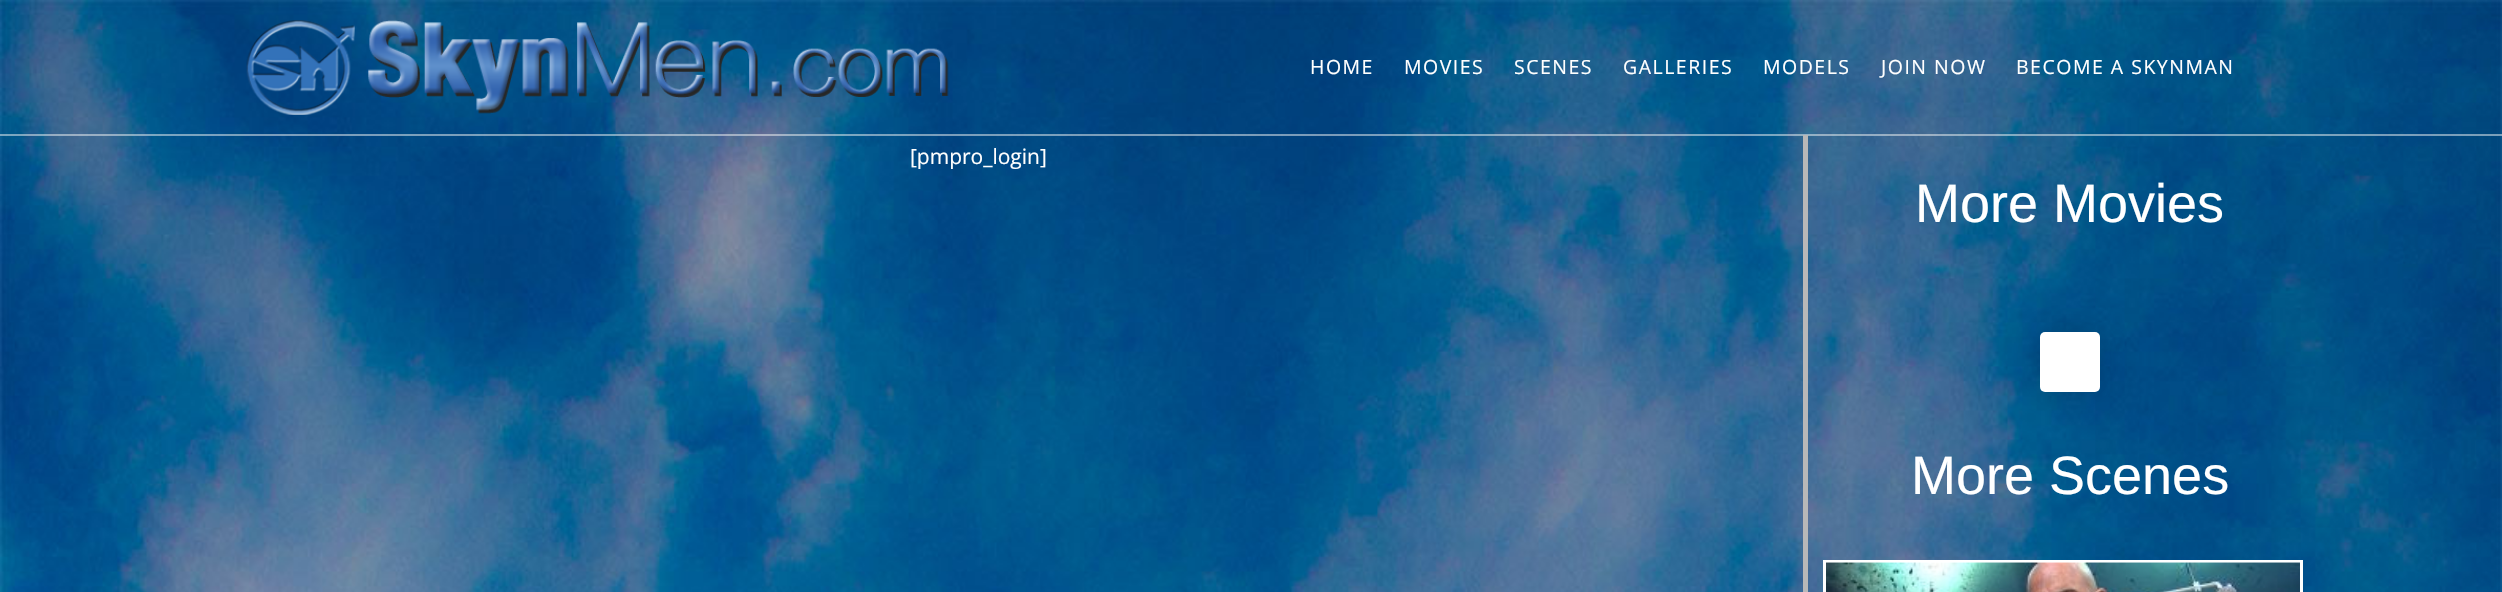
void draw(SkCanvas* canvas) {
  SkPaint paint;
  paint.setAntiAlias(true);
  auto face = [&](const char* family, int weight, float size, bool italic = false) {
    SkFontStyle style(weight, SkFontStyle::kNormal_Width,
      italic ? SkFontStyle::kItalic_Slant : SkFontStyle::kUpright_Slant);
    SkFont result(fontMgr->matchFamilyStyle(family, style), size);
    result.setSubpixel(true);
    return result;
  };
  auto writeSpaced = [&](const char* s, float x, float y, const SkFont& font, const SkPaint& ink, float letter, float word) {
    std::vector<SkGlyphID> glyphs(font.countText(s, strlen(s), SkTextEncoding::kUTF8));
    std::vector<float> xs(glyphs.size());
    font.textToGlyphs(s, strlen(s), SkTextEncoding::kUTF8, glyphs);
    font.getXPos(glyphs, xs, x);
    float extra = 0;
    for (size_t i = 0; i < glyphs.size(); i++) {
      xs[i] += extra;
      extra += letter + word * (glyphs[i] == font.unicharToGlyph(' '));
    }
    canvas->drawTextBlob(SkTextBlob::MakeFromPosHGlyphs(glyphs, xs, y, font), 0, 0, ink);
  };
  auto paste = [&](const char* path, float x, float y, float w, float h) {
    auto image = SkImages::DeferredFromEncodedData(SkData::MakeFromFileName(path));
    canvas->drawImageRect(image, SkRect::MakeXYWH(x, y, w, h), SkSamplingOptions());
  };
  canvas->clear(0xffffffff);
  paste("img/1.png", 0, 0, 2502, 592);
  paint.setColor(0x80f5f5f5);
  canvas->drawRect(SkRect::MakeXYWH(0, 134, 2502, 2), paint);
  paste("img/2.png", 246, 20, 703, 95);
  paint.setColor(0xffb8b8b8);
  canvas->drawRect(SkRect::MakeXYWH(1803, 135, 5, 457), paint);
  paint.setColor(0x26000000);
  paint.setMaskFilter(SkMaskFilter::MakeBlur(kNormal_SkBlurStyle, 15));
  canvas->drawRoundRect(SkRect::MakeXYWH(2040, 332, 60, 60), 5, 5, paint);
  paint.setMaskFilter(nullptr);
  paint.setColor(0xffffffff);
  canvas->drawRoundRect(SkRect::MakeXYWH(2040, 332, 60, 60), 5, 5, paint);
  paint.setStroke(true);
  paint.setStrokeWidth(3);
  canvas->drawRect(SkRect::MakeXYWH(1824.5f, 561.5f, 477, 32), paint);
  paste("img/3.png", 1826, 562, 474, 30);
  auto f0 = face("Open Sans", 400, 19.5f);
  paint.setStroke(false);
  {
    const struct { const char* s; float x, y; } items[] = {
      {"HOME", 1310, 74},
      {"MOVIES", 1404, 74},
      {"SCENES", 1514, 74},
      {"GALLERIES", 1623, 74},
      {"MODELS", 1763, 74},
      {"JOIN NOW", 1881, 74},
      {"BECOME A SKYNMAN", 2016, 74},
    };
    for (auto [s, x, y] : items) {
      writeSpaced(s, x, y, f0, paint, 1.5f, 0);
    }
  }
  auto f1 = face("Open Sans", 400, 21);
  canvas->drawString("[pmpro_login]", 910, 164, f1, paint);
  auto f2 = face("Liberation Sans", 400, 54);
  canvas->drawString("More Movies", 1915, 222, f2, paint);
  canvas->drawString("More Scenes", 1911, 494, f2, paint);
}
